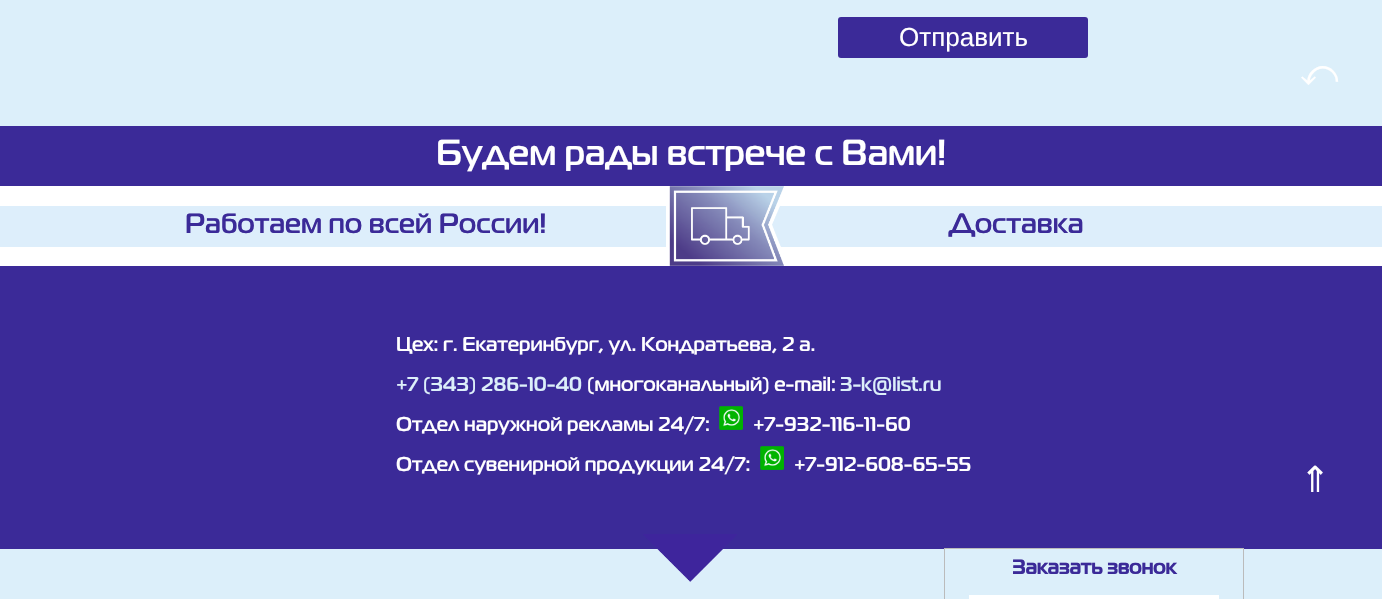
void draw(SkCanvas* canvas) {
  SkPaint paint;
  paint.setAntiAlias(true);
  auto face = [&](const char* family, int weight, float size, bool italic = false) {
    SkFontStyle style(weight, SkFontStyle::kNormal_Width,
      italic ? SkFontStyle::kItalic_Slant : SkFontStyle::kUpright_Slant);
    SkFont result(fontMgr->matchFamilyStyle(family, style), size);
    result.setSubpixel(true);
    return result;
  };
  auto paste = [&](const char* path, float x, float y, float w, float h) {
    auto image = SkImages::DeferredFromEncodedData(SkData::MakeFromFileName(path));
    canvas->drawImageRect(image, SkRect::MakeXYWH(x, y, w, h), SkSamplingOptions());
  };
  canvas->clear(0xff3b2a98);
  paint.setColor(0xffdceffa);
  canvas->drawRect(SkRect::MakeXYWH(0, 0, 1382, 126), paint);
  paint.setColor(0xff3b2a98);
  canvas->drawRoundRect(SkRect::MakeXYWH(838, 17, 250, 41), 3, 3, paint);
  paint.setColor(0xffffffff);
  canvas->drawRect(SkRect::MakeXYWH(0, 186, 1382, 80), paint);
  paint.setColor(0xffddeefb);
  canvas->drawRect(SkRect::MakeXYWH(0, 206, 1382, 41), paint);
  paste("img/1.png", 666, 186, 118, 80);
  paste("img/2.png", 719, 406, 24, 24);
  paste("img/3.png", 760, 446, 24, 24);
  paint.setColor(0xffdceffa);
  canvas->drawRect(SkRect::MakeXYWH(0, 549, 1382, 50), paint);
  paste("img/4.png", 643, 534, 94, 48);
  {
    const struct { float x, y, w, h; SkColor color; } items[] = {
      {944, 548, 300, 1, 0xffbbbbbb},
      {944, 549, 1, 50, 0xffbbbbbb},
      {969, 595, 250, 4, 0xffffffff},
      {1243, 549, 1, 50, 0xffbbbbbb},
    };
    for (auto [x, y, w, h, color] : items) {
      paint.setColor(color);
      canvas->drawRect(SkRect::MakeXYWH(x, y, w, h), paint);
    }
  }
  auto f0 = face("Liberation Sans", 400, 26);
  paint.setColor(0xffffffff);
  canvas->drawString("Отправить", 899, 46, f0, paint);
  auto f1 = face("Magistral", 500, 36);
  canvas->drawString("Будем рады встрече с Вами!", 436, 165, f1, paint);
  auto f2 = face("Magistral", 500, 28);
  paint.setColor(0xff3b2a98);
  canvas->drawString("Работаем по всей России!", 185, 233, f2, paint);
  canvas->drawString("Доставка", 949, 233, f2, paint);
  auto f3 = face("Magistral", 500, 20);
  paint.setColor(0xffffffff);
  canvas->drawString("Цех: г. Екатеринбург, ул. Кондратьева, 2 а.", 396, 351, f3, paint);
  paint.setColor(0xffdceffa);
  canvas->drawString("+7 (343) 286-10-40", 396, 391, f3, paint);
  paint.setColor(0xffffffff);
  canvas->drawString("(многоканальный) e-mail:", 587, 391, f3, paint);
  paint.setColor(0xffdceffa);
  canvas->drawString("3-k@list.ru", 840, 391, f3, paint);
  paint.setColor(0xffffffff);
  {
    const struct { const char* s; float x, y; } items[] = {
      {"Отдел наружной рекламы 24/7:", 396, 431},
      {"+7-932-116-11-60", 753, 431},
      {"Отдел сувенирной продукции 24/7:", 396, 471},
      {"+7-912-608-65-55", 794, 471},
    };
    for (auto [s, x, y] : items) {
      canvas->drawString(s, x, y, f3, paint);
    }
  }
  auto f4 = face("Magistral", 700, 20);
  paint.setColor(0xff3b2a98);
  canvas->drawString("Заказать звонок", 1012, 574, f4, paint);
  auto f5 = face("FreeSerif", 400, 36);
  paint.setColor(0xffffffff);
  canvas->drawString("⤺", 1300, 85, f5, paint);
  auto f6 = face("DejaVu Sans", 400, 36);
  canvas->drawString("⇑", 1300, 492, f6, paint);
}
